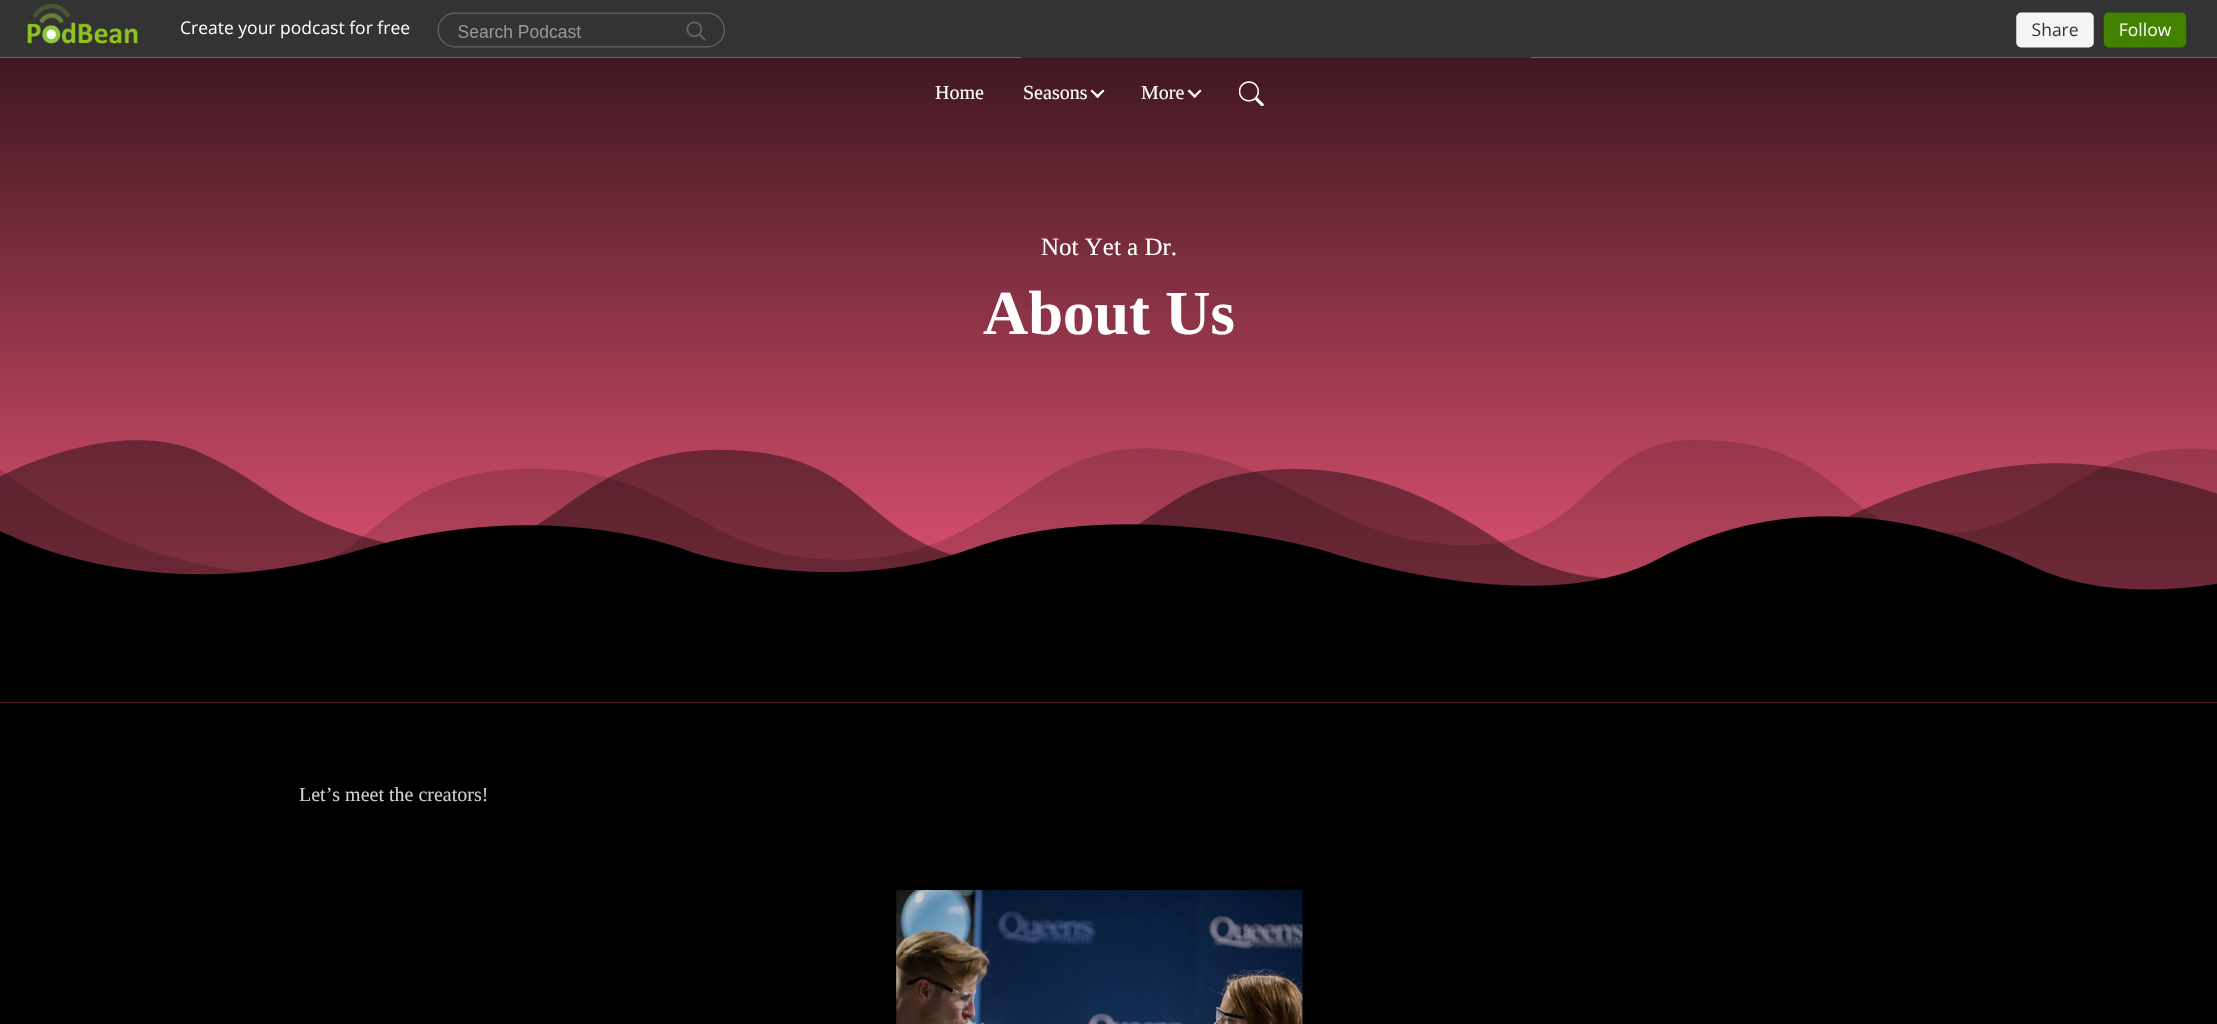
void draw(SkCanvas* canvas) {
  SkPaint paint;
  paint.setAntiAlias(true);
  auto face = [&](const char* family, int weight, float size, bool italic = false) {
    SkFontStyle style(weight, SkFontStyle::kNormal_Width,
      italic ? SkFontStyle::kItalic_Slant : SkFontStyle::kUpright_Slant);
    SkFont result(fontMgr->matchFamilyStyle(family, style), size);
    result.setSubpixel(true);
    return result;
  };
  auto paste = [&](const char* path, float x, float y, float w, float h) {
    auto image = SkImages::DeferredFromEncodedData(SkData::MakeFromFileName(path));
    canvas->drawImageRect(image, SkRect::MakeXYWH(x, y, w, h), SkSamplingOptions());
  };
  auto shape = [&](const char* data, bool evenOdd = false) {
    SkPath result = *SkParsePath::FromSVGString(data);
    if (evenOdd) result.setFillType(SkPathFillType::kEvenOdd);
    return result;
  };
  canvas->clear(0xff000000);
  paint.setColor(0xff333333);
  canvas->drawRect(SkRect::MakeXYWH(0, 0, 2217, 4), paint);
  paste("img/1.png", 0, 4, 2217, 54);
  {
    const SkColor colors[] = {0xffff5e81, 0xff401720};
    const float stops[] = {0, 1};
    const SkPoint ends[] = {{1109, 703}, {1109, 58}};
    paint.setShader(SkGradientShader::MakeLinear(ends, colors, stops, 2, SkTileMode::kClamp));
    paint.setAlpha(255);
  }
  canvas->drawRect(SkRect::MakeXYWH(0, 58, 2217, 645), paint);
  paint.setShader(nullptr);
  paint.setColor(0xffffffff);
  canvas->drawPath(shape("M1103 89.5L1104.5 91L1097.5 98L1095.5 96.5Z"), paint);
  canvas->drawPath(shape("M1092 89.5L1099.5 96.5L1097.5 98L1090.5 91Z"), paint);
  canvas->drawPath(shape("M1200 89.5L1201.5 91L1194.5 98L1193 96.5Z"), paint);
  canvas->drawPath(shape("M1189.5 89.5L1196.5 96.5L1194.5 98L1187.5 91Z"), paint);
  paste("img/2.png", 1239, 81, 25, 25);
  paste("img/3.png", 0, 440, 2217, 263);
  paste("img/4.png", 896, 890, 407, 134);
  auto f0 = face("Liberation Serif", 400, 20);
  {
    const struct { const char* s; float x, y; } items[] = {
      {"Home", 935, 99},
      {"Seasons", 1023, 99},
      {"More", 1141, 99},
    };
    for (auto [s, x, y] : items) {
      canvas->drawString(s, x, y, f0, paint);
    }
  }
  auto f1 = face("Liberation Serif", 400, 25);
  canvas->drawString("Not Yet a Dr.", 1041, 255, f1, paint);
  auto f2 = face("Liberation Serif", 700, 62.5f);
  canvas->drawString("About Us", 983, 334, f2, paint);
  paint.setColor(0xffcfcfcf);
  canvas->drawString("Let’s meet the creators!", 299, 801, f0, paint);
}
